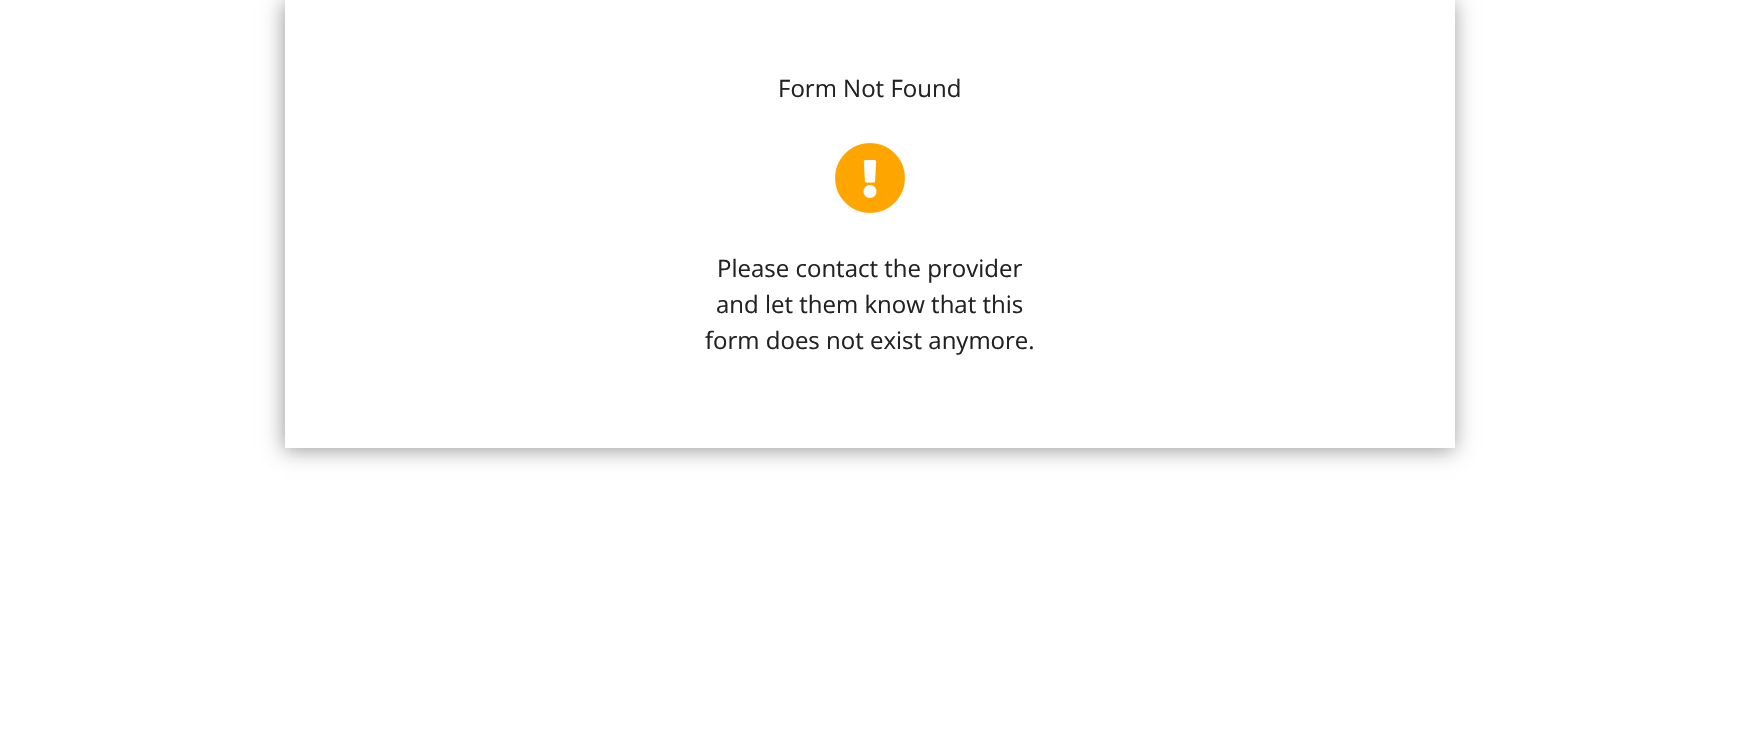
void draw(SkCanvas* canvas) {
  SkPaint paint;
  paint.setAntiAlias(true);
  auto face = [&](const char* family, int weight, float size, bool italic = false) {
    SkFontStyle style(weight, SkFontStyle::kNormal_Width,
      italic ? SkFontStyle::kItalic_Slant : SkFontStyle::kUpright_Slant);
    SkFont result(fontMgr->matchFamilyStyle(family, style), size);
    result.setSubpixel(true);
    return result;
  };
  auto paste = [&](const char* path, float x, float y, float w, float h) {
    auto image = SkImages::DeferredFromEncodedData(SkData::MakeFromFileName(path));
    canvas->drawImageRect(image, SkRect::MakeXYWH(x, y, w, h), SkSamplingOptions());
  };
  auto shape = [&](const char* data, bool evenOdd = false) {
    SkPath result = *SkParsePath::FromSVGString(data);
    if (evenOdd) result.setFillType(SkPathFillType::kEvenOdd);
    return result;
  };
  canvas->clear(0xffffffff);
  canvas->save();
  canvas->clipPath(shape("M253 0H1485V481H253ZM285 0H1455V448H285Z", true), true);
  paint.setColor(0x66000000);
  paint.setMaskFilter(SkMaskFilter::MakeBlur(kNormal_SkBlurStyle, 10));
  canvas->drawRect(SkRect::MakeXYWH(284, 2, 1170, 448), paint);
  paint.setMaskFilter(nullptr);
  canvas->restore();
  paste("img/1.png", 835, 143, 70, 70);
  auto f0 = face("Open Sans", 400, 24);
  paint.setColor(0xff222222);
  {
    const struct { const char* s; float x, y; } items[] = {
      {"Form Not Found", 778, 97},
      {"Please contact the provider", 717, 277},
      {"and let them know that this", 716, 313},
      {"form does not exist anymore.", 705, 349},
    };
    for (auto [s, x, y] : items) {
      canvas->drawString(s, x, y, f0, paint);
    }
  }
}
